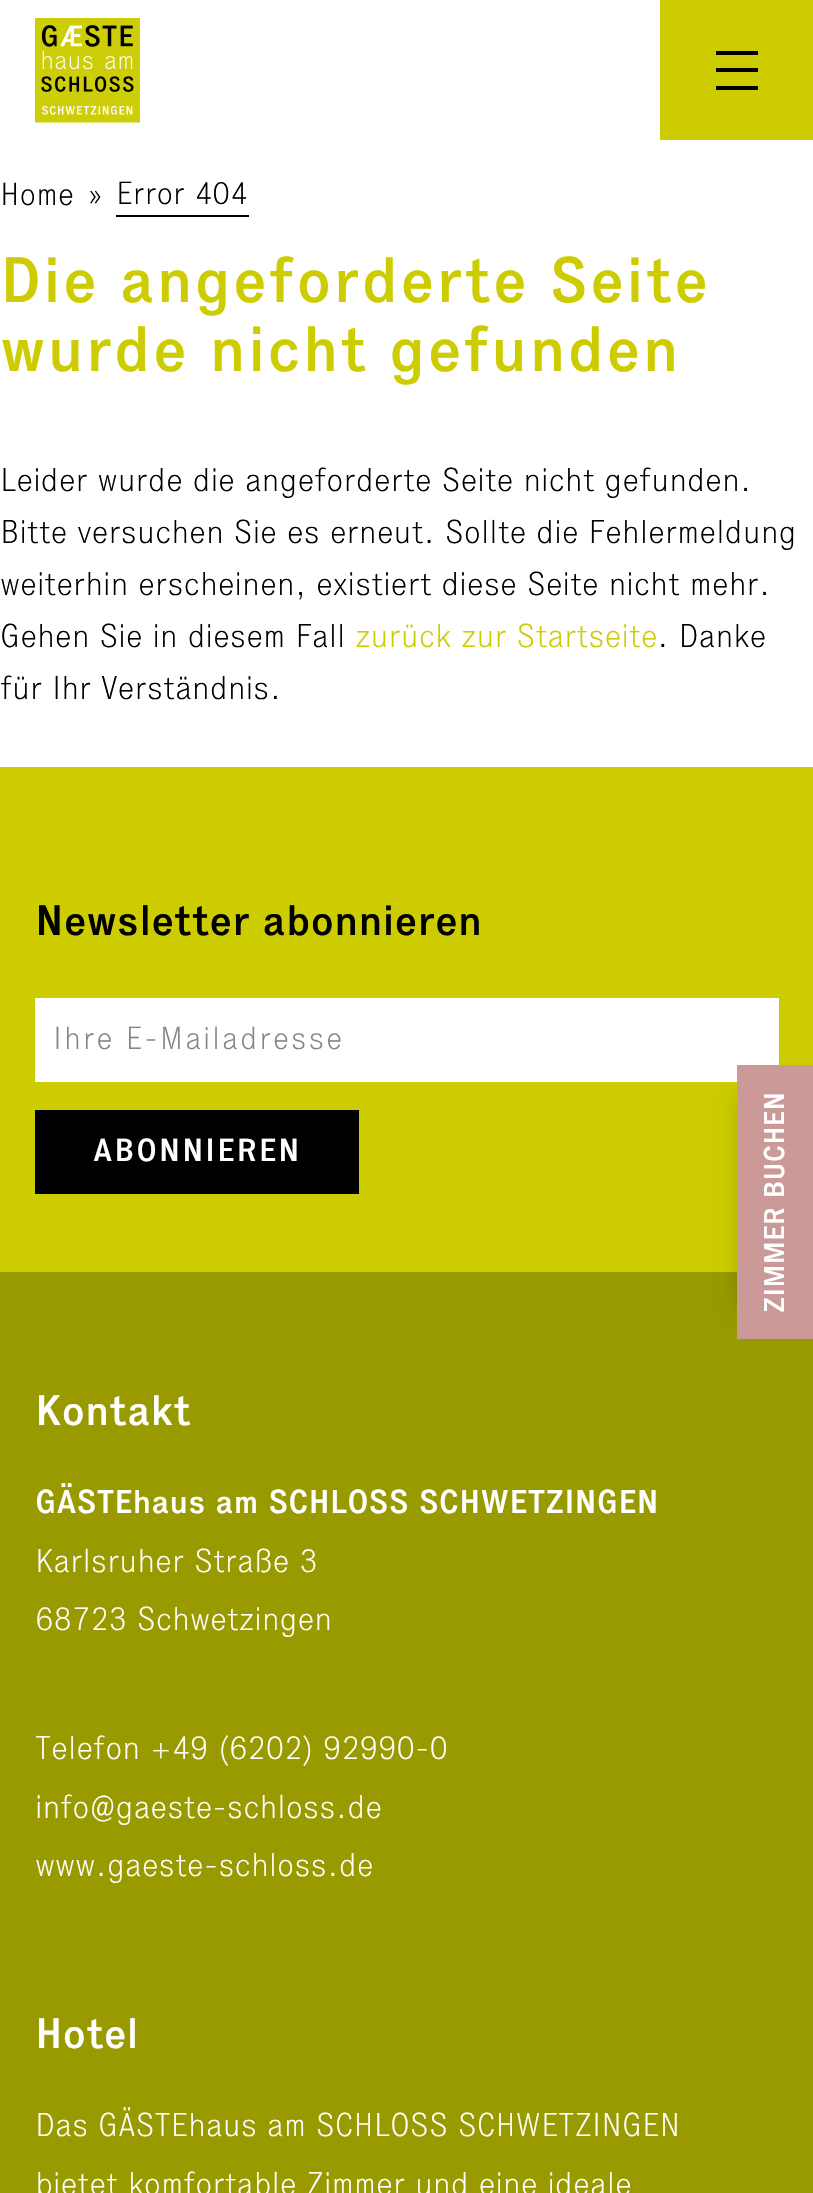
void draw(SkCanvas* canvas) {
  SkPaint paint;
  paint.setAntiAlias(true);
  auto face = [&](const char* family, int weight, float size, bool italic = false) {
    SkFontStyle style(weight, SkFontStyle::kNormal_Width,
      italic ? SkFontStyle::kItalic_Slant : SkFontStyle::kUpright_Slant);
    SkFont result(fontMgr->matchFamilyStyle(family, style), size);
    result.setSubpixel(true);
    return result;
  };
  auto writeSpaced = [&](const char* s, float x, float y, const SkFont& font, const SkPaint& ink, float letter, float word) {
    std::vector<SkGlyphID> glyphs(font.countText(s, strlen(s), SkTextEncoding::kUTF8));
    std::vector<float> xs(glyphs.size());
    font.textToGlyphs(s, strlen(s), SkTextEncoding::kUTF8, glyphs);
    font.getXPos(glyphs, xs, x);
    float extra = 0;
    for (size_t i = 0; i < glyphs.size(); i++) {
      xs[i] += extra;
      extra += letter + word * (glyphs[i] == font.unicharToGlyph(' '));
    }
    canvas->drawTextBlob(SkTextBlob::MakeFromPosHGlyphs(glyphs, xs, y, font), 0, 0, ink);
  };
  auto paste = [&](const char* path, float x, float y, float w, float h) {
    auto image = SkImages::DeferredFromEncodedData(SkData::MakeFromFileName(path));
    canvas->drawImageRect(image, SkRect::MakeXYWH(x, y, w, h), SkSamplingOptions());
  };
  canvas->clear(0xffffffff);
  paste("img/1.png", 35, 18, 105, 105);
  {
    const struct { float x, y, w, h; SkColor color; } items[] = {
      {660, 0, 153, 140, 0xffcccc00},
      {716, 51, 42, 4, 0xff000000},
      {716, 68, 42, 4, 0xff000000},
      {716, 86, 42, 4, 0xff000000},
      {116, 215, 133, 2, 0xff000000},
      {0, 767, 813, 505, 0xffcccc00},
      {35, 998, 744, 84, 0xffffffff},
      {35, 1110, 324, 84, 0xff000000},
      {0, 1272, 813, 921, 0xff999900},
    };
    for (auto [x, y, w, h, color] : items) {
      paint.setColor(color);
      canvas->drawRect(SkRect::MakeXYWH(x, y, w, h), paint);
    }
  }
  paint.setColor(0x26000000);
  paint.setMaskFilter(SkMaskFilter::MakeBlur(kNormal_SkBlurStyle, 9));
  canvas->drawRect(SkRect::MakeXYWH(737, 1097, 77, 210), paint);
  paint.setMaskFilter(nullptr);
  paint.setColor(0xffcc9999);
  canvas->drawRect(SkRect::MakeXYWH(737, 1065, 76, 274), paint);
  auto f0 = face("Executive", 200, 31.5f);
  paint.setColor(0xff000000);
  {
    const struct { const char* s; float x, y; } items[] = {
      {"Home", 0, 205},
      {"»", 88, 205},
      {"Error 404", 116, 204},
    };
    for (auto [s, x, y] : items) {
      canvas->drawString(s, x, y, f0, paint);
    }
  }
  auto f1 = face("Executive", 500, 63);
  paint.setColor(0xffcccc00);
  writeSpaced("Die angeforderte Seite", 0, 302, f1, paint, 1.75f, 0);
  writeSpaced("wurde nicht gefunden", 0, 371, f1, paint, 1.75f, 0);
  auto f2 = face("Executive", 200, 32.55f);
  paint.setColor(0xff000000);
  {
    const struct { const char* s; float x, y; } items[] = {
      {"Leider wurde die angeforderte Seite nicht gefunden.", 0, 491},
      {"Bitte versuchen Sie es erneut. Sollte die Fehlermeldung", 0, 543},
      {"weiterhin erscheinen, existiert diese Seite nicht mehr.", 0, 595},
      {"Gehen Sie in diesem Fall", 0, 647},
    };
    for (auto [s, x, y] : items) {
      canvas->drawString(s, x, y, f2, paint);
    }
  }
  paint.setColor(0xffcccc00);
  canvas->drawString("zurück zur Startseite", 355, 647, f2, paint);
  paint.setColor(0xff000000);
  canvas->drawString(". Danke", 657, 647, f2, paint);
  canvas->drawString("für Ihr Verständnis.", 0, 699, f2, paint);
  auto f3 = face("Executive", 500, 42);
  canvas->drawString("Newsletter abonnieren", 35, 935, f3, paint);
  paint.setColor(0xff88837c);
  writeSpaced("Ihre E-Mailadresse", 53, 1049, f0, paint, 1.75f, 0);
  auto f4 = face("Executive", 500, 31.5f);
  paint.setColor(0xffffffff);
  writeSpaced("ABONNIEREN", 93, 1161, f4, paint, 1.75f, 0);
  canvas->drawString("Kontakt", 35, 1425, f3, paint);
  auto f5 = face("Executive", 500, 32.55f);
  canvas->drawString("GÄSTEhaus am SCHLOSS SCHWETZINGEN", 35, 1513, f5, paint);
  {
    const struct { const char* s; float x, y; } items[] = {
      {"Karlsruher Straße 3", 35, 1572},
      {"68723 Schwetzingen", 35, 1630},
      {"Telefon +49 (6202) 92990-0", 35, 1759},
      {"info@gaeste-schloss.de", 35, 1818},
      {"www.gaeste-schloss.de", 35, 1876},
    };
    for (auto [s, x, y] : items) {
      canvas->drawString(s, x, y, f2, paint);
    }
  }
  canvas->drawString("Hotel", 35, 2048, f3, paint);
  canvas->drawString("Das GÄSTEhaus am SCHLOSS SCHWETZINGEN", 35, 2136, f2, paint);
  canvas->drawString("bietet komfortable Zimmer und eine ideale", 35, 2195, f2, paint);
  auto f6 = face("Executive", 500, 28);
  canvas->save();
  canvas->rotate(-90, 784, 1313);
  canvas->drawString("ZIMMER BUCHEN", 784, 1313, f6, paint);
  canvas->restore();
}
